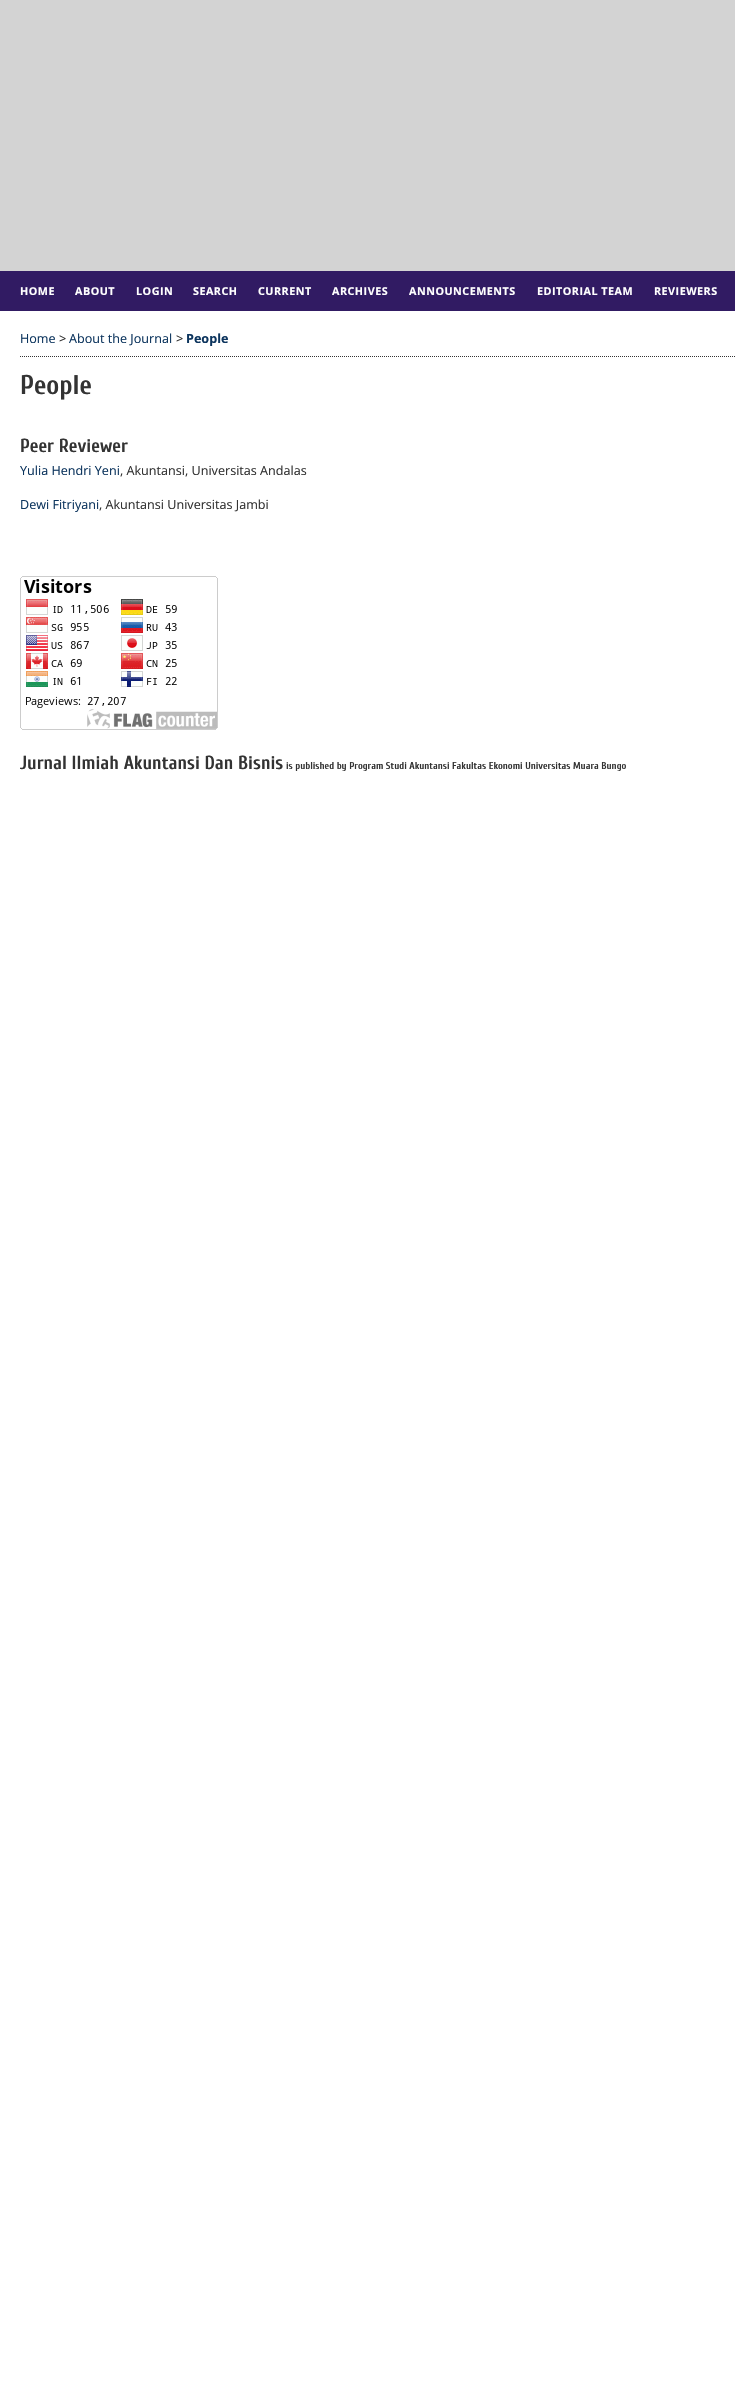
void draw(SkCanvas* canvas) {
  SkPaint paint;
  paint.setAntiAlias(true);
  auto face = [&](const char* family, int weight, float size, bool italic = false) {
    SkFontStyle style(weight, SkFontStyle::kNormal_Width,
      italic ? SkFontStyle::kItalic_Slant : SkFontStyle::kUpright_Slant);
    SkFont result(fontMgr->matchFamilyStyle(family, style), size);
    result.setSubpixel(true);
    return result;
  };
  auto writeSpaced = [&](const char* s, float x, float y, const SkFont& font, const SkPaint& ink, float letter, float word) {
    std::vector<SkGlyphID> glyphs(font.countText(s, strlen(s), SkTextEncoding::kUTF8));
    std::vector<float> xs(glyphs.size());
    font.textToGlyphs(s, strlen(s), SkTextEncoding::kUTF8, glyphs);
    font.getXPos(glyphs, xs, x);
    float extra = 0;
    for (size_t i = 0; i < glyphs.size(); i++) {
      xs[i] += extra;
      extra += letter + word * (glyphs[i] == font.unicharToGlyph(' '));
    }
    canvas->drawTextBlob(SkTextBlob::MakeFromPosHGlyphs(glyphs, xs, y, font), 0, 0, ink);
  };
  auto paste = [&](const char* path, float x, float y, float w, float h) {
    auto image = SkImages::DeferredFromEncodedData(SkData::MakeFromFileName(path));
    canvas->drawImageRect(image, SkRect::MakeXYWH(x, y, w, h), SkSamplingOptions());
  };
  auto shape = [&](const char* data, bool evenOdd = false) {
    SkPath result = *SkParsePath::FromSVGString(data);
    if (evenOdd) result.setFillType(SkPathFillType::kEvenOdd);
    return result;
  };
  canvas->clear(0xffffffff);
  paint.setColor(0xffd3d3d3);
  canvas->drawRect(SkRect::MakeXYWH(0, 0, 735, 271), paint);
  paint.setColor(0xff311b63);
  canvas->drawRect(SkRect::MakeXYWH(0, 271, 735, 40), paint);
  paint.setStroke(true);
  paint.setStrokeWidth(1);
  paint.setColor(0xff333333);
  paint.setPathEffect(SkDashPathEffect::Make({{1, 1}}, 0));
  canvas->drawPath(shape("M20 356.5H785"), paint);
  paint.setPathEffect(nullptr);
  paste("img/1.png", 20, 576, 198, 154);
  auto f0 = face("Open Sans", 700, 10.75f);
  paint.setStroke(false);
  paint.setColor(0xffffffff);
  {
    const struct { const char* s; float x, y; } items[] = {
      {"HOME", 20, 295},
      {"ABOUT", 75, 295},
      {"LOGIN", 136, 295},
      {"SEARCH", 193, 295},
      {"CURRENT", 258, 295},
      {"ARCHIVES", 332, 295},
      {"ANNOUNCEMENTS", 409, 295},
      {"EDITORIAL TEAM", 537, 295},
      {"REVIEWERS", 654, 295},
    };
    for (auto [s, x, y] : items) {
      writeSpaced(s, x, y, f0, paint, 0.5f, 0);
    }
  }
  auto f1 = face("Open Sans", 400, 12.6f);
  paint.setColor(0xff0d355e);
  canvas->drawString("Home", 20, 343, f1, paint);
  paint.setColor(0xff333333);
  canvas->drawString(">", 59, 343, f1, paint);
  paint.setColor(0xff0d355e);
  canvas->drawString("About the Journal", 69, 343, f1, paint);
  paint.setColor(0xff333333);
  canvas->drawString(">", 176, 343, f1, paint);
  auto f2 = face("Open Sans", 700, 12.6f);
  paint.setColor(0xff0d355e);
  canvas->drawString("People", 186, 343, f2, paint);
  auto f3 = face("Cuprum", 700, 27);
  paint.setColor(0xff333333);
  canvas->drawString("People", 20, 394, f3, paint);
  auto f4 = face("Cuprum", 700, 18.9f);
  canvas->drawString("Peer Reviewer", 20, 452, f4, paint);
  paint.setColor(0xff0d355e);
  canvas->drawString("Yulia Hendri Yeni", 20, 475, f1, paint);
  paint.setColor(0xff333333);
  canvas->drawString(", Akuntansi, Universitas Andalas", 120, 475, f1, paint);
  paint.setColor(0xff0d355e);
  canvas->drawString("Dewi Fitriyani", 20, 509, f1, paint);
  paint.setColor(0xff333333);
  canvas->drawString(", Akuntansi Universitas Jambi", 99, 509, f1, paint);
  canvas->drawString("Jurnal Ilmiah Akuntansi Dan Bisnis", 20, 769, f4, paint);
  auto f5 = face("Cuprum", 700, 10);
  canvas->drawString("is published by Program Studi Akuntansi Fakultas Ekonomi Universitas Muara Bungo", 286, 769, f5, paint);
}
